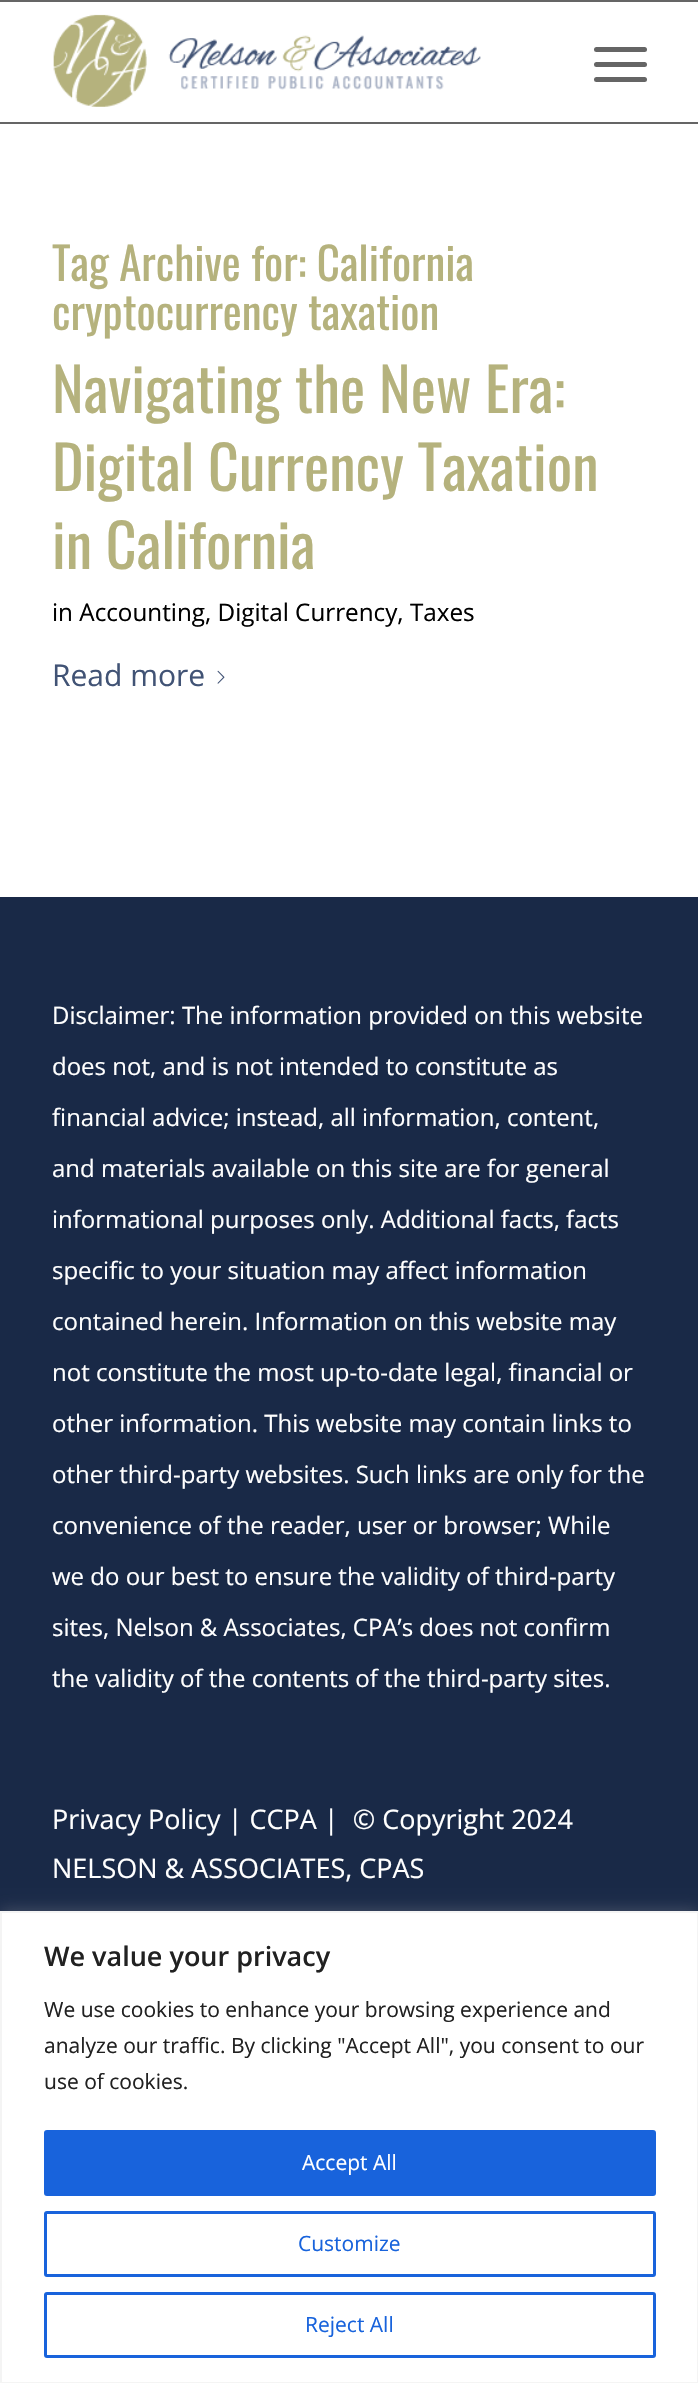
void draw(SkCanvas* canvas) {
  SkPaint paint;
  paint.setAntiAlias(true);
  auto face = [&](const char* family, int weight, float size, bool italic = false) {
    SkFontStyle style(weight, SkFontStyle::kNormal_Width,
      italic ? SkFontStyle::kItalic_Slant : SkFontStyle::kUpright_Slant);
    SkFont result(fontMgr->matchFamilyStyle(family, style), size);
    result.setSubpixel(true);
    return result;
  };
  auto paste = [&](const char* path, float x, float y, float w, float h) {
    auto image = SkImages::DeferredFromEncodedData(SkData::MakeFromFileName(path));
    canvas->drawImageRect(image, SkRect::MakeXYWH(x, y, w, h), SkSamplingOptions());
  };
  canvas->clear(0xffffffff);
  paint.setColor(0xff656565);
  canvas->drawRect(SkRect::MakeXYWH(0, 0, 698, 2), paint);
  canvas->drawRect(SkRect::MakeXYWH(0, 122, 698, 2), paint);
  paste("img/1.png", 53, 14, 428, 93);
  canvas->drawRoundRect(SkRect::MakeXYWH(594, 62, 53, 5), 2.5f, 2.5f, paint);
  canvas->drawRoundRect(SkRect::MakeXYWH(594, 47, 53, 5), 2.5f, 2.5f, paint);
  canvas->drawRoundRect(SkRect::MakeXYWH(594, 77, 53, 5), 2.5f, 2.5f, paint);
  paste("img/2.png", 217, 670, 8, 14);
  paint.setColor(0xff192947);
  canvas->drawRect(SkRect::MakeXYWH(0, 897, 698, 1014), paint);
  paint.setColor(0x4dacabab);
  paint.setMaskFilter(SkMaskFilter::MakeBlur(kNormal_SkBlurStyle, 7.5f));
  canvas->drawRect(SkRect::MakeXYWH(0, 1910, 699, 472), paint);
  paint.setMaskFilter(nullptr);
  paint.setColor(0xffffffff);
  canvas->drawRect(SkRect::MakeXYWH(1, 1912, 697, 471), paint);
  paint.setStroke(true);
  paint.setStrokeWidth(2);
  paint.setColor(0xfff4f4f4);
  canvas->drawRect(SkRect::MakeXYWH(1, 1912, 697, 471), paint);
  paint.setStroke(false);
  paint.setColor(0xff1863dc);
  canvas->drawRoundRect(SkRect::MakeXYWH(45.5f, 2131.5f, 609, 63), 1.5f, 1.5f, paint);
  paint.setStroke(true);
  paint.setStrokeWidth(3);
  canvas->drawRoundRect(SkRect::MakeXYWH(45.5f, 2131.5f, 609, 63), 1.5f, 1.5f, paint);
  canvas->drawRoundRect(SkRect::MakeXYWH(45.5f, 2212.5f, 609, 63), 1.5f, 1.5f, paint);
  canvas->drawRoundRect(SkRect::MakeXYWH(45.5f, 2293.5f, 609, 63), 1.5f, 1.5f, paint);
  auto f0 = face("Oswald", 400, 45);
  paint.setStroke(false);
  paint.setColor(0xffb5b27d);
  canvas->drawString("Tag Archive for: California", 52, 281, f0, paint);
  canvas->drawString("cryptocurrency taxation", 52, 330, f0, paint);
  auto f1 = face("Oswald", 400, 60);
  {
    const struct { const char* s; float x, y; } items[] = {
      {"Navigating the New Era:", 52, 413},
      {"Digital Currency Taxation", 52, 491},
      {"in California", 52, 569},
    };
    for (auto [s, x, y] : items) {
      canvas->drawString(s, x, y, f1, paint);
    }
  }
  auto f2 = face("Open Sans", 400, 24.25f);
  paint.setColor(0xff000000);
  canvas->drawString("in Accounting, Digital Currency, Taxes", 52, 621, f2, paint);
  auto f3 = face("Open Sans", 400, 30);
  paint.setColor(0xff415375);
  canvas->drawString("Read more", 52, 686, f3, paint);
  auto f4 = face("Open Sans", 400, 24);
  paint.setColor(0xffffffff);
  {
    const struct { const char* s; float x, y; } items[] = {
      {"Disclaimer: The information provided on this website", 52, 1024},
      {"does not, and is not intended to constitute as", 52, 1075},
      {"financial advice; instead, all information, content,", 52, 1126},
      {"and materials available on this site are for general", 52, 1177},
      {"informational purposes only. Additional facts, facts", 52, 1228},
      {"specific to your situation may affect information", 52, 1279},
      {"contained herein. Information on this website may", 52, 1330},
      {"not constitute the most up-to-date legal, financial or", 52, 1381},
      {"other information. This website may contain links to", 52, 1432},
      {"other third-party websites. Such links are only for the", 52, 1483},
      {"convenience of the reader, user or browser; While", 52, 1534},
      {"we do our best to ensure the validity of third-party", 52, 1585},
      {"sites, Nelson & Associates, CPA’s does not confirm", 52, 1636},
      {"the validity of the contents of the third-party sites.", 52, 1687},
    };
    for (auto [s, x, y] : items) {
      canvas->drawString(s, x, y, f4, paint);
    }
  }
  auto f5 = face("Open Sans", 400, 27);
  canvas->drawString("Privacy Policy | CCPA |  © Copyright 2024", 52, 1829, f5, paint);
  canvas->drawString("NELSON & ASSOCIATES, CPAS", 52, 1878, f5, paint);
  auto f6 = face("Open Sans", 600, 27);
  paint.setColor(0xff212121);
  canvas->drawString("We value your privacy", 44, 1966, f6, paint);
  auto f7 = face("Open Sans", 400, 21);
  {
    const struct { const char* s; float x, y; } items[] = {
      {"We use cookies to enhance your browsing experience and", 44, 2017},
      {"analyze our traffic. By clicking \"Accept All\", you consent to our", 44, 2053},
      {"use of cookies.", 44, 2089},
    };
    for (auto [s, x, y] : items) {
      canvas->drawString(s, x, y, f7, paint);
    }
  }
  paint.setColor(0xffffffff);
  canvas->drawString("Accept All", 302, 2170, f7, paint);
  paint.setColor(0xff1863dc);
  canvas->drawString("Customize", 298, 2251, f7, paint);
  canvas->drawString("Reject All", 305, 2332, f7, paint);
}
